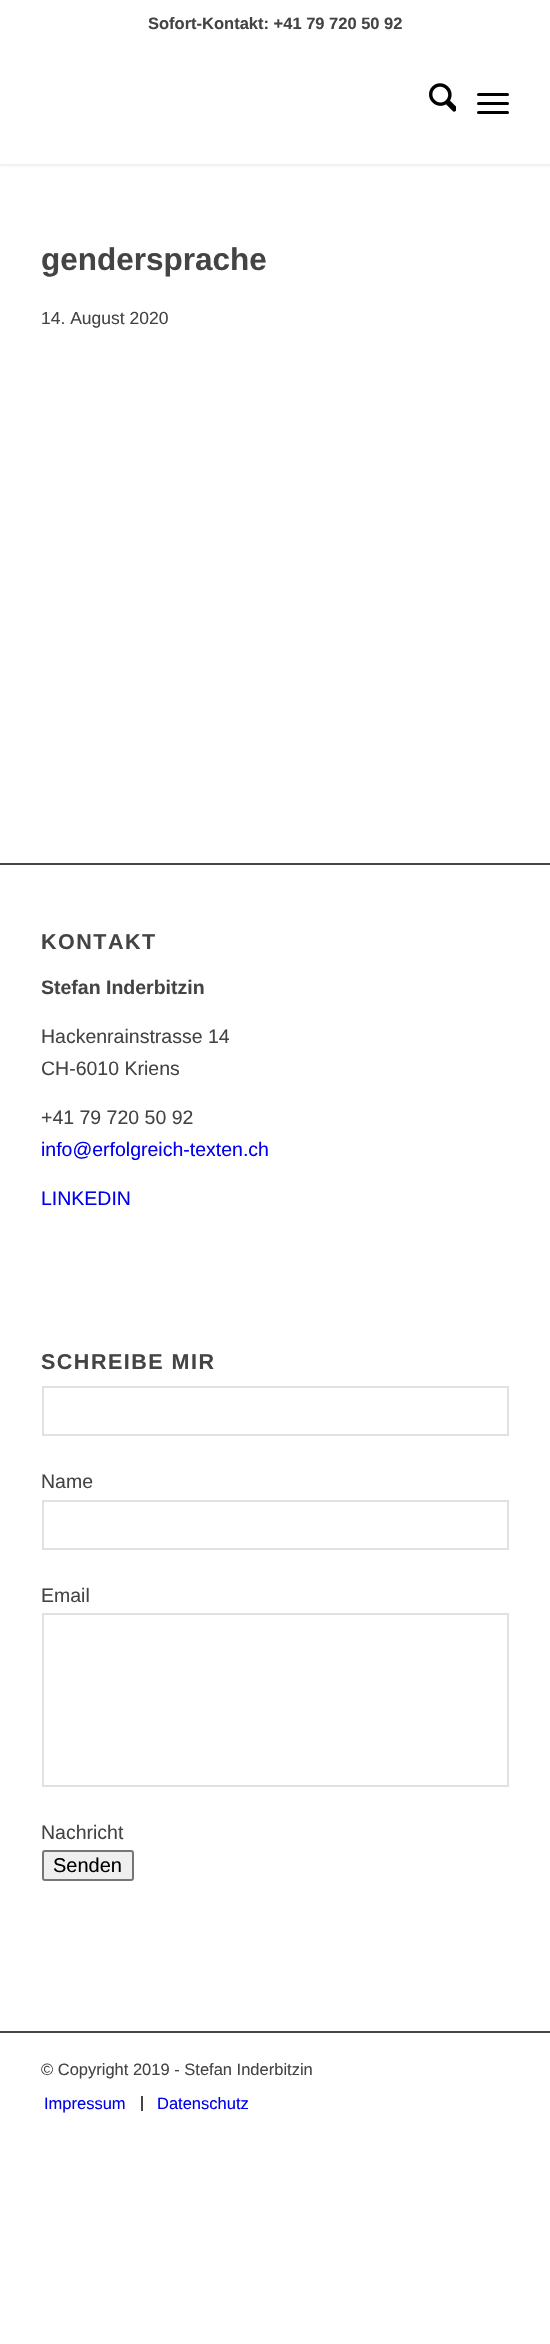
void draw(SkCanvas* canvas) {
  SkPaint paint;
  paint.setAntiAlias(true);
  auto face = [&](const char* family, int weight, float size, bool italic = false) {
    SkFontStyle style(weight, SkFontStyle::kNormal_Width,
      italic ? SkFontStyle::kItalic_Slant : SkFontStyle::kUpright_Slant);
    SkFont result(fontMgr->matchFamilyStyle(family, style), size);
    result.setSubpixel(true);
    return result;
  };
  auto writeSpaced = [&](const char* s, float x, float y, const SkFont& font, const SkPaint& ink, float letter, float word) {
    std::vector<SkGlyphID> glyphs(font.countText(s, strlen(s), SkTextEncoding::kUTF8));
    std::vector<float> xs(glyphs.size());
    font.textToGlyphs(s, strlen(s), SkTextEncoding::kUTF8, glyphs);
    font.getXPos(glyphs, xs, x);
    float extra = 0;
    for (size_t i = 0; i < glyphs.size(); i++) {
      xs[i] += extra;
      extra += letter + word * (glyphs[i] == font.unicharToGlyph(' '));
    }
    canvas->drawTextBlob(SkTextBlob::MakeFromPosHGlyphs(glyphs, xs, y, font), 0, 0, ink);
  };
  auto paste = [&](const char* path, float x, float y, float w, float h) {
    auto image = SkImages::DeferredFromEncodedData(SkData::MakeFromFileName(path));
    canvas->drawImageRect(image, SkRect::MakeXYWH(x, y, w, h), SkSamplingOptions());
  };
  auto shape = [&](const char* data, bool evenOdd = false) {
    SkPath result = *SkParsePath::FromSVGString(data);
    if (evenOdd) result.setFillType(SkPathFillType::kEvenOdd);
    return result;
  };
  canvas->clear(0xffffffff);
  canvas->save();
  canvas->clipPath(shape("M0 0H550V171H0ZM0 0H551V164H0Z", true), true);
  paint.setColor(0x1a000000);
  paint.setMaskFilter(SkMaskFilter::MakeBlur(kNormal_SkBlurStyle, 1.5f));
  canvas->drawRect(SkRect::MakeXYWH(-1, -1, 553, 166), paint);
  paint.setMaskFilter(nullptr);
  canvas->restore();
  paste("img/1.png", 429, 83, 27, 29);
  paint.setColor(0xff000000);
  canvas->drawRoundRect(SkRect::MakeXYWH(477, 102, 32, 3), 1.5f, 1.5f, paint);
  canvas->drawRoundRect(SkRect::MakeXYWH(477, 93, 32, 3), 1.5f, 1.5f, paint);
  canvas->drawRoundRect(SkRect::MakeXYWH(477, 111, 32, 3), 1.5f, 1.5f, paint);
  paint.setColor(0xff444444);
  canvas->drawRect(SkRect::MakeXYWH(0, 863, 550, 2), paint);
  paint.setStroke(true);
  paint.setStrokeWidth(2);
  paint.setColor(0xffe1e1e1);
  canvas->drawRect(SkRect::MakeXYWH(43, 1387, 465, 48), paint);
  canvas->drawRect(SkRect::MakeXYWH(43, 1501, 465, 48), paint);
  canvas->drawRect(SkRect::MakeXYWH(43, 1614, 465, 172), paint);
  paint.setStroke(false);
  paint.setColor(0xffefefef);
  canvas->drawRoundRect(SkRect::MakeXYWH(43, 1851, 90, 29), 2, 2, paint);
  paint.setStroke(true);
  paint.setColor(0xff767676);
  canvas->drawRoundRect(SkRect::MakeXYWH(43, 1851, 90, 29), 2, 2, paint);
  paint.setStroke(false);
  paint.setColor(0xff444444);
  canvas->drawRect(SkRect::MakeXYWH(0, 2031, 550, 2), paint);
  canvas->drawRect(SkRect::MakeXYWH(141, 2096, 2, 15), paint);
  auto f0 = face("Liberation Sans", 700, 16.5f);
  canvas->drawString("Sofort-Kontakt: +41 79 720 50 92", 148, 29, f0, paint);
  auto f1 = face("Liberation Sans", 700, 31.5f);
  canvas->drawString("gendersprache", 41, 270, f1, paint);
  auto f2 = face("Liberation Sans", 400, 17.5f);
  canvas->drawString("14. August 2020", 41, 324, f2, paint);
  auto f3 = face("Liberation Sans", 700, 21.5f);
  writeSpaced("KONTAKT", 41, 949, f3, paint, 1.5f, 0);
  auto f4 = face("Liberation Sans", 700, 19.5f);
  canvas->drawString("Stefan Inderbitzin", 41, 994, f4, paint);
  auto f5 = face("Liberation Sans", 400, 19.5f);
  {
    const struct { const char* s; float x, y; } items[] = {
      {"Hackenrainstrasse 14", 41, 1043},
      {"CH-6010 Kriens", 41, 1075},
      {"+41 79 720 50 92", 41, 1124},
    };
    for (auto [s, x, y] : items) {
      canvas->drawString(s, x, y, f5, paint);
    }
  }
  paint.setColor(0xff0000ee);
  canvas->drawString("info@erfolgreich-texten.ch", 41, 1156, f5, paint);
  canvas->drawString("LINKEDIN", 41, 1205, f5, paint);
  paint.setColor(0xff444444);
  writeSpaced("SCHREIBE MIR", 41, 1369, f3, paint, 1.5f, 0);
  {
    const struct { const char* s; float x, y; } items[] = {
      {"Name", 41, 1488},
      {"Email", 41, 1602},
      {"Nachricht", 41, 1839},
    };
    for (auto [s, x, y] : items) {
      canvas->drawString(s, x, y, f5, paint);
    }
  }
  auto f6 = face("Liberation Sans", 400, 20);
  paint.setColor(0xff000000);
  canvas->drawString("Senden", 53, 1872, f6, paint);
  auto f7 = face("Liberation Sans", 400, 16.5f);
  paint.setColor(0xff444444);
  canvas->drawString("© Copyright 2019 - Stefan Inderbitzin", 41, 2075, f7, paint);
  paint.setColor(0xff0000ee);
  canvas->drawString("Impressum", 44, 2109, f7, paint);
  canvas->drawString("Datenschutz", 157, 2109, f7, paint);
}
